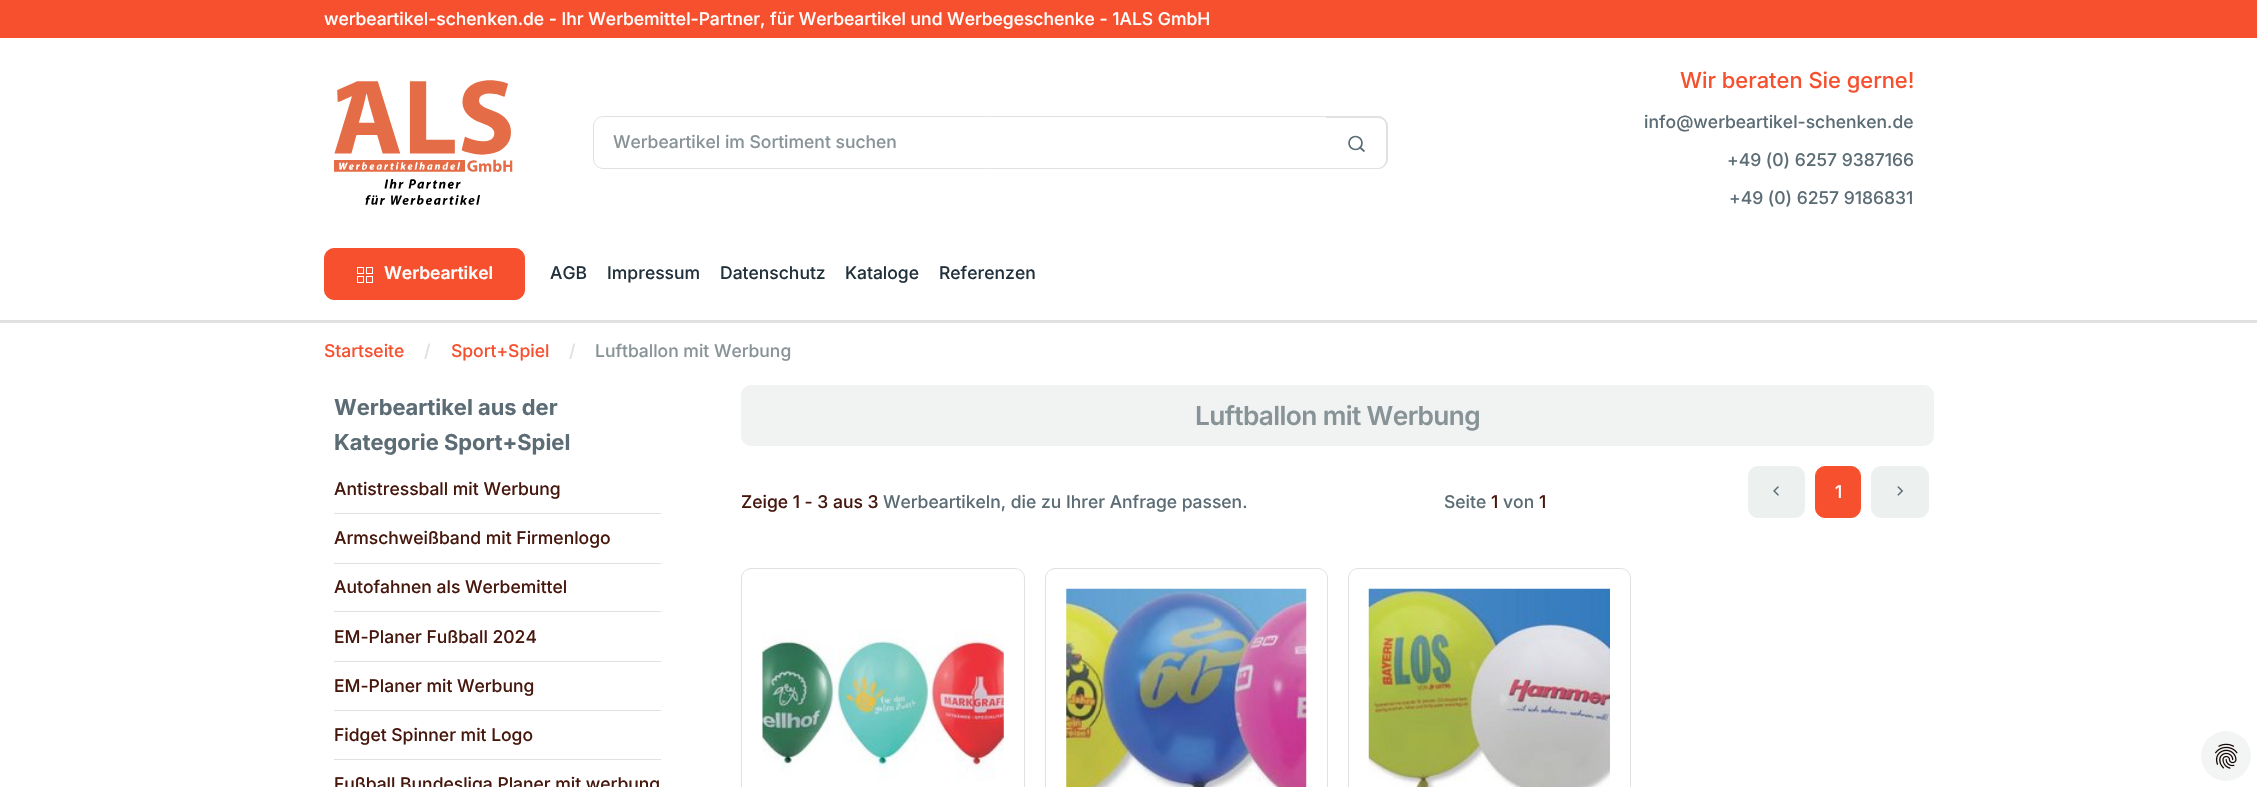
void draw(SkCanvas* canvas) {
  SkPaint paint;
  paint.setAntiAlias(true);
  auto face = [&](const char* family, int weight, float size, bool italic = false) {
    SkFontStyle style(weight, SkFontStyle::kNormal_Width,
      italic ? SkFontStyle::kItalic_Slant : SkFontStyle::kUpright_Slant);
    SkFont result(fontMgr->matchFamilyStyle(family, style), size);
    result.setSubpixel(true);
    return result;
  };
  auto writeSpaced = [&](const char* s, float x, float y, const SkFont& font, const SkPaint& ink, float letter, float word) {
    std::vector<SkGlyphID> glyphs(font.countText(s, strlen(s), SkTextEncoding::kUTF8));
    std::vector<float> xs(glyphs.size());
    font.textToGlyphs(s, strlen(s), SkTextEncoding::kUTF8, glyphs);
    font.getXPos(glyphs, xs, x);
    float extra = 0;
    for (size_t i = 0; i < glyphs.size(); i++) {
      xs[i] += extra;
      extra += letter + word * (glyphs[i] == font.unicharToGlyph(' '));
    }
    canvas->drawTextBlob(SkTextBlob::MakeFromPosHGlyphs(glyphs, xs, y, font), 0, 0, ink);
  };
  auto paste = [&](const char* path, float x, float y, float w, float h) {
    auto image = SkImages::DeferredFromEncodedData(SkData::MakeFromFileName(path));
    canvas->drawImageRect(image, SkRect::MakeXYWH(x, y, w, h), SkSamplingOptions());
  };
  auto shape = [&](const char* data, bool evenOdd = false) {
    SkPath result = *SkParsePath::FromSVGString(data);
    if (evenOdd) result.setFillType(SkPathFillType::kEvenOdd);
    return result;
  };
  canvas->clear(0xffffffff);
  paint.setColor(0xffdfe2e1);
  canvas->drawRect(SkRect::MakeXYWH(0, 320, 2257, 3), paint);
  paint.setColor(0xfff6502f);
  canvas->drawRect(SkRect::MakeXYWH(0, 0, 2257, 38), paint);
  paste("img/1.png", 334, 80, 179, 125);
  paint.setStroke(true);
  paint.setStrokeWidth(1);
  paint.setColor(0xffdfe2e1);
  canvas->drawRoundRect(SkRect::MakeXYWH(593.5f, 116.5f, 794, 52), 9.5f, 9.5f, paint);
  paint.setStroke(false);
  paint.setColor(0xffffffff);
  canvas->drawPath(shape("M1326 116H1378C1383.5 116 1388 120.5 1388 126V159C1388 164.5 1383.5 169 1378 169H1326Z"), paint);
  paint.setColor(0xffdfe2e1);
  canvas->drawPath(shape("M1326 116H1378C1383 116 1388 121 1388 126V159C1388 164 1383 169 1378 169H1326ZM1326 118H1378C1382 118 1386 121 1386 126V159C1386 164 1382 168 1378 168H1326Z", true), paint);
  paint.setStroke(true);
  paint.setStrokeWidth(1.7f);
  paint.setColor(0xff5c6c75);
  canvas->drawCircle(1355.5f, 143, 6.5f, paint);
  paint.setStrokeCap(SkPaint::kRound_Cap);
  paint.setStrokeJoin(SkPaint::kRound_Join);
  canvas->drawPath(shape("M1364 151L1360 147.5"), paint);
  paint.setStroke(false);
  paint.setColor(0xfff6502f);
  canvas->drawRoundRect(SkRect::MakeXYWH(324.5f, 248.5f, 200, 51), 9.5f, 9.5f, paint);
  paint.setStroke(true);
  paint.setStrokeWidth(1);
  paint.setStrokeCap(SkPaint::kButt_Cap);
  paint.setStrokeJoin(SkPaint::kMiter_Join);
  canvas->drawRoundRect(SkRect::MakeXYWH(324.5f, 248.5f, 200, 51), 9.5f, 9.5f, paint);
  paste("img/2.png", 357, 267, 16, 16);
  paint.setStroke(false);
  {
    const struct { float x, y, w, h; SkColor color; } items[] = {
      {334, 513, 327, 1, 0xffdfe2e1},
      {334, 563, 327, 1, 0xffdfe2e1},
      {334, 611, 327, 1, 0xffdfe2e1},
      {334, 661, 327, 1, 0xffdfe2e1},
      {334, 710, 327, 1, 0xffdfe2e1},
      {334, 759, 327, 1, 0xffdfe2e1},
    };
    for (auto [x, y, w, h, color] : items) {
      paint.setColor(color);
      canvas->drawRect(SkRect::MakeXYWH(x, y, w, h), paint);
    }
  }
  paint.setColor(0xfff0f3f2);
  canvas->drawRoundRect(SkRect::MakeXYWH(741, 385, 1193, 61), 10, 10, paint);
  paint.setColor(0xffecf0ef);
  canvas->drawRoundRect(SkRect::MakeXYWH(1748.5f, 466.5f, 56, 51), 9.5f, 9.5f, paint);
  paint.setStroke(true);
  canvas->drawRoundRect(SkRect::MakeXYWH(1748.5f, 466.5f, 56, 51), 9.5f, 9.5f, paint);
  paste("img/3.png", 1773, 486, 6, 10);
  paint.setStroke(false);
  paint.setColor(0xfff6502f);
  canvas->drawRoundRect(SkRect::MakeXYWH(1815.5f, 466.5f, 45, 51), 9.5f, 9.5f, paint);
  paint.setStroke(true);
  canvas->drawRoundRect(SkRect::MakeXYWH(1815.5f, 466.5f, 45, 51), 9.5f, 9.5f, paint);
  paint.setStroke(false);
  paint.setColor(0xffecf0ef);
  canvas->drawRoundRect(SkRect::MakeXYWH(1871.5f, 466.5f, 57, 51), 9.5f, 9.5f, paint);
  paint.setStroke(true);
  canvas->drawRoundRect(SkRect::MakeXYWH(1871.5f, 466.5f, 57, 51), 9.5f, 9.5f, paint);
  paste("img/4.png", 1897, 486, 7, 10);
  paint.setColor(0xffdfe2e1);
  canvas->drawRoundRect(SkRect::MakeXYWH(741.5f, 568.5f, 283, 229), 9.5f, 9.5f, paint);
  paste("img/5.png", 762, 630, 242, 151);
  canvas->drawRoundRect(SkRect::MakeXYWH(1045.5f, 568.5f, 282, 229), 9.5f, 9.5f, paint);
  paste("img/6.png", 1066, 588, 241, 199);
  canvas->drawRoundRect(SkRect::MakeXYWH(1348.5f, 568.5f, 282, 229), 9.5f, 9.5f, paint);
  paste("img/7.png", 1368, 588, 242, 199);
  paint.setStroke(false);
  paint.setColor(0xfff3f5f5);
  canvas->drawCircle(2226, 756, 25, paint);
  paste("img/8.png", 2215, 743, 23, 26);
  auto f0 = face("Inter", 500, 17.5f);
  paint.setColor(0xffffffff);
  canvas->drawString("werbeartikel-schenken.de - Ihr Werbemittel-Partner, für Werbeartikel und Werbegeschenke - 1ALS GmbH", 324, 25, f0, paint);
  paint.setColor(0xff889397);
  canvas->drawString("Werbeartikel im Sortiment suchen", 613, 148, f0, paint);
  auto f1 = face("Inter", 500, 21.9f);
  paint.setColor(0xfff6502f);
  canvas->drawString("Wir beraten Sie gerne!", 1680, 88, f1, paint);
  paint.setColor(0xff5c6c75);
  {
    const struct { const char* s; float x, y; } items[] = {
      {"info@werbeartikel-schenken.de", 1644, 128},
      {"+49 (0) 6257 9387166", 1727, 166},
      {"+49 (0) 6257 9186831", 1729, 204},
    };
    for (auto [s, x, y] : items) {
      canvas->drawString(s, x, y, f0, paint);
    }
  }
  auto f2 = face("Inter", 600, 17.5f);
  paint.setColor(0xffffffff);
  canvas->drawString("Werbeartikel", 384, 279, f2, paint);
  paint.setColor(0xff21313c);
  {
    const struct { const char* s; float x, y; } items[] = {
      {"AGB", 550, 279},
      {"Impressum", 607, 279},
      {"Datenschutz", 720, 279},
      {"Kataloge", 845, 279},
      {"Referenzen", 939, 279},
    };
    for (auto [s, x, y] : items) {
      canvas->drawString(s, x, y, f0, paint);
    }
  }
  paint.setColor(0xfff6502f);
  canvas->drawString("Startseite", 324, 357, f0, paint);
  paint.setColor(0xffdfe2e1);
  canvas->drawString("/", 424, 357, f0, paint);
  paint.setColor(0xfff6502f);
  canvas->drawString("Sport+Spiel", 451, 357, f0, paint);
  paint.setColor(0xffdfe2e1);
  canvas->drawString("/", 569, 357, f0, paint);
  paint.setColor(0xff889397);
  canvas->drawString("Luftballon mit Werbung", 595, 357, f0, paint);
  auto f3 = face("Inter", 700, 21.9f);
  paint.setColor(0xff5c6c75);
  canvas->drawString("Werbeartikel aus der", 334, 415, f3, paint);
  canvas->drawString("Kategorie Sport+Spiel", 334, 450, f3, paint);
  paint.setColor(0xff46170d);
  {
    const struct { const char* s; float x, y; } items[] = {
      {"Antistressball mit Werbung", 334, 495},
      {"Armschweißband mit Firmenlogo", 334, 544},
      {"Autofahnen als Werbemittel", 334, 593},
      {"EM-Planer Fußball 2024", 334, 643},
      {"EM-Planer mit Werbung", 334, 692},
      {"Fidget Spinner mit Logo", 334, 741},
      {"Fußball Bundesliga Planer mit werbung", 334, 790},
    };
    for (auto [s, x, y] : items) {
      canvas->drawString(s, x, y, f0, paint);
    }
  }
  auto f4 = face("Inter", 600, 26.25f);
  paint.setColor(0xff889397);
  writeSpaced("Luftballon mit Werbung", 1195, 425, f4, paint, -0.6f, 0);
  paint.setColor(0xffffffff);
  canvas->drawString("1", 1835, 498, f0, paint);
  paint.setColor(0xff46170d);
  canvas->drawString("Zeige 1 - 3 aus 3", 741, 508, f0, paint);
  paint.setColor(0xff5c6c75);
  canvas->drawString("Werbeartikeln, die zu Ihrer Anfrage passen.", 883, 508, f0, paint);
  canvas->drawString("Seite", 1444, 508, f0, paint);
  paint.setColor(0xff46170d);
  canvas->drawString("1", 1491, 508, f0, paint);
  paint.setColor(0xff5c6c75);
  canvas->drawString("von", 1503, 508, f0, paint);
  paint.setColor(0xff46170d);
  canvas->drawString("1", 1539, 508, f0, paint);
}
